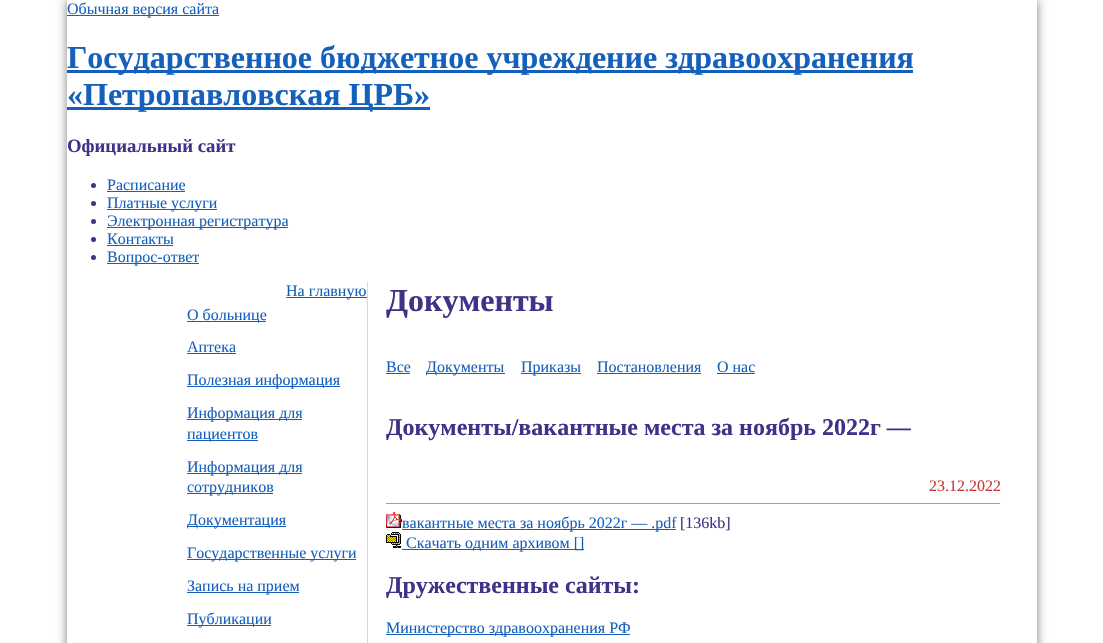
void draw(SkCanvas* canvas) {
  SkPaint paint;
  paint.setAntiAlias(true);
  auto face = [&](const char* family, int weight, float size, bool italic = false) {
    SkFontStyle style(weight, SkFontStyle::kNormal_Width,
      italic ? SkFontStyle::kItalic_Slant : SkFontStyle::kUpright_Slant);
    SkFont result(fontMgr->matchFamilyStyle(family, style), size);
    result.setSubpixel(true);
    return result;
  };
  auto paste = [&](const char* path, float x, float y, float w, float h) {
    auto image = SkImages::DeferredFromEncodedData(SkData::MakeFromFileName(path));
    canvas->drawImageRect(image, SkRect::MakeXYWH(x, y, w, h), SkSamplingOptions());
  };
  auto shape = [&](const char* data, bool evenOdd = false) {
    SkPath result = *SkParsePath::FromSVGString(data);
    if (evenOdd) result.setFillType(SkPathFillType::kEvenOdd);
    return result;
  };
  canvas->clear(0xffffffff);
  canvas->save();
  canvas->clipPath(shape("M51 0H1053V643H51ZM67 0H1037V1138H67Z", true), true);
  paint.setColor(0x80000000);
  paint.setMaskFilter(SkMaskFilter::MakeBlur(kNormal_SkBlurStyle, 5));
  canvas->drawRect(SkRect::MakeXYWH(67, 0, 970, 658), paint);
  paint.setMaskFilter(nullptr);
  canvas->restore();
  {
    const struct { float x, y, w, h; SkColor color; } items[] = {
      {67, 15, 152, 1, 0xff1560bd},
      {67, 70, 846, 3, 0xff1560bd},
      {67, 107, 363, 3, 0xff1560bd},
    };
    for (auto [x, y, w, h, color] : items) {
      paint.setColor(color);
      canvas->drawRect(SkRect::MakeXYWH(x, y, w, h), paint);
    }
  }
  paint.setColor(0xff423189);
  canvas->drawCircle(93.5f, 185.5f, 2.5f, paint);
  paint.setColor(0xff1560bd);
  canvas->drawRect(SkRect::MakeXYWH(107, 191, 78, 1), paint);
  paint.setColor(0xff423189);
  canvas->drawCircle(93.5f, 203.5f, 2.5f, paint);
  paint.setColor(0xff1560bd);
  canvas->drawRect(SkRect::MakeXYWH(107, 209, 110, 1), paint);
  paint.setColor(0xff423189);
  canvas->drawCircle(93.5f, 221.5f, 2.5f, paint);
  paint.setColor(0xff1560bd);
  canvas->drawRect(SkRect::MakeXYWH(107, 227, 181, 1), paint);
  paint.setColor(0xff423189);
  canvas->drawCircle(93.5f, 239.5f, 2.5f, paint);
  paint.setColor(0xff1560bd);
  canvas->drawRect(SkRect::MakeXYWH(107, 245, 66, 1), paint);
  paint.setColor(0xff423189);
  canvas->drawCircle(93.5f, 257.5f, 2.5f, paint);
  {
    const struct { float x, y, w, h; SkColor color; } items[] = {
      {107, 263, 92, 1, 0xff1560bd},
      {367, 282, 1, 361, 0xffd8d8d8},
      {286, 297, 81, 1, 0xff1560bd},
      {187, 321, 79, 1, 0xff1560bd},
      {187, 353, 49, 1, 0xff1560bd},
      {187, 386, 153, 1, 0xff1560bd},
      {187, 419, 115, 1, 0xff1560bd},
      {187, 440, 71, 1, 0xff1560bd},
      {187, 473, 115, 1, 0xff1560bd},
      {187, 493, 86, 1, 0xff1560bd},
      {187, 526, 99, 1, 0xff1560bd},
      {187, 559, 169, 1, 0xff1560bd},
      {187, 592, 112, 1, 0xff1560bd},
      {187, 625, 84, 1, 0xff1560bd},
      {386, 373, 24, 1, 0xff1560bd},
      {426, 373, 79, 1, 0xff1560bd},
      {521, 373, 60, 1, 0xff1560bd},
      {597, 373, 104, 1, 0xff1560bd},
      {717, 373, 38, 1, 0xff1560bd},
      {386, 503, 615, 1, 0xff9f9f9f},
      {1000, 503, 1, 1, 0xffeeeeee},
    };
    for (auto [x, y, w, h, color] : items) {
      paint.setColor(color);
      canvas->drawRect(SkRect::MakeXYWH(x, y, w, h), paint);
    }
  }
  paste("img/1.png", 386, 512, 16, 16);
  paint.setColor(0xff1560bd);
  canvas->drawRect(SkRect::MakeXYWH(402, 529, 274, 1), paint);
  paste("img/2.png", 386, 532, 15, 16);
  canvas->drawRect(SkRect::MakeXYWH(402, 549, 182, 1), paint);
  canvas->drawRect(SkRect::MakeXYWH(386, 634, 244, 1), paint);
  auto f0 = face("Liberation Serif", 400, 16);
  canvas->drawString("Обычная версия сайта", 67, 14, f0, paint);
  auto f1 = face("Liberation Serif", 700, 32);
  canvas->drawString("Государственное бюджетное учреждение здравоохранения", 67, 68, f1, paint);
  canvas->drawString("«Петропавловская ЦРБ»", 67, 105, f1, paint);
  auto f2 = face("Liberation Serif", 700, 18.75f);
  paint.setColor(0xff423189);
  canvas->drawString("Официальный сайт", 67, 152, f2, paint);
  paint.setColor(0xff1560bd);
  {
    const struct { const char* s; float x, y; } items[] = {
      {"Расписание", 107, 190},
      {"Платные услуги", 107, 208},
      {"Электронная регистратура", 107, 226},
      {"Контакты", 107, 244},
      {"Вопрос-ответ", 107, 262},
      {"На главную", 286, 296},
      {"О больнице", 187, 320},
      {"Аптека", 187, 352},
      {"Полезная информация", 187, 385},
      {"Информация для", 187, 418},
      {"пациентов", 187, 439},
      {"Информация для", 187, 472},
      {"сотрудников", 187, 492},
      {"Документация", 187, 525},
      {"Государственные услуги", 187, 558},
      {"Запись на прием", 187, 591},
      {"Публикации", 187, 624},
    };
    for (auto [s, x, y] : items) {
      canvas->drawString(s, x, y, f0, paint);
    }
  }
  paint.setColor(0xff423189);
  canvas->drawString("Документы", 386, 311, f1, paint);
  paint.setColor(0xff1560bd);
  {
    const struct { const char* s; float x, y; } items[] = {
      {"Все", 386, 372},
      {"Документы", 426, 372},
      {"Приказы", 521, 372},
      {"Постановления", 597, 372},
      {"О нас", 717, 372},
    };
    for (auto [s, x, y] : items) {
      canvas->drawString(s, x, y, f0, paint);
    }
  }
  auto f3 = face("Liberation Serif", 700, 24);
  paint.setColor(0xff423189);
  canvas->drawString("Документы/вакантные места за ноябрь 2022г —", 386, 435, f3, paint);
  paint.setColor(0xffcc3333);
  canvas->drawString("23.12.2022", 929, 491, f0, paint);
  paint.setColor(0xff1560bd);
  canvas->drawString("вакантные места за ноябрь 2022г — .pdf", 402, 528, f0, paint);
  paint.setColor(0xff423189);
  canvas->drawString("[136kb]", 680, 528, f0, paint);
  paint.setColor(0xff1560bd);
  canvas->drawString("Скачать одним архивом []", 406, 548, f0, paint);
  paint.setColor(0xff423189);
  canvas->drawString("Дружественные сайты:", 386, 593, f3, paint);
  paint.setColor(0xff1560bd);
  canvas->drawString("Министерство здравоохранения РФ", 386, 633, f0, paint);
}
